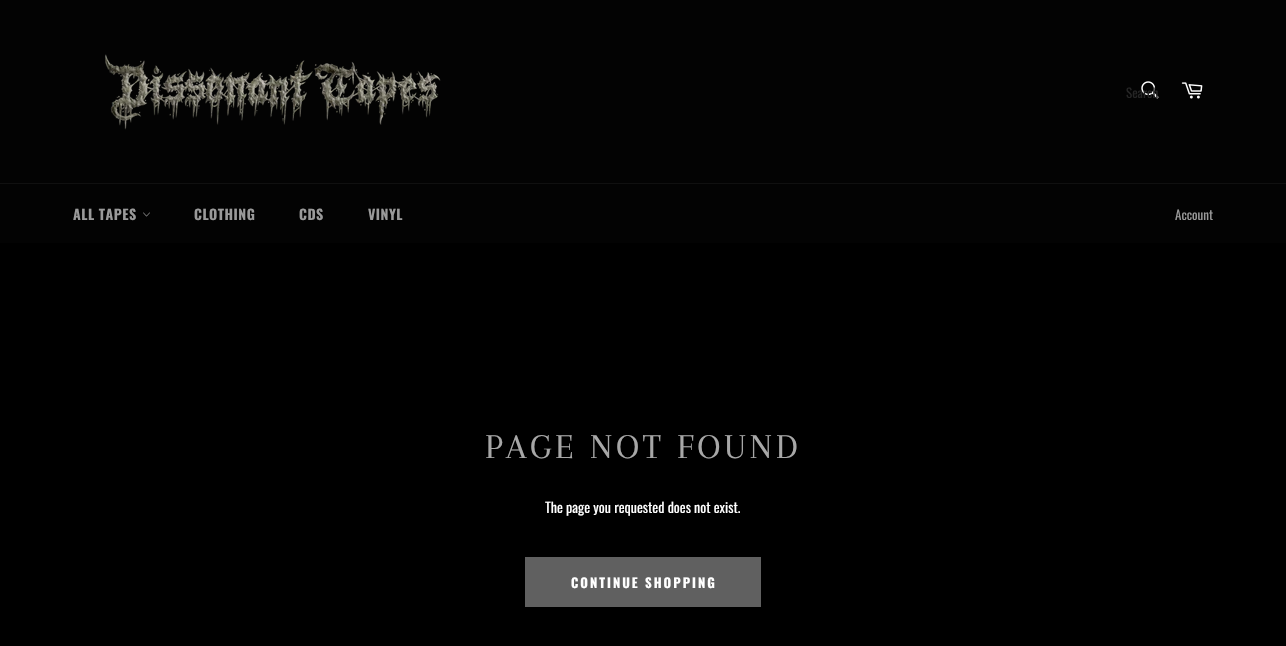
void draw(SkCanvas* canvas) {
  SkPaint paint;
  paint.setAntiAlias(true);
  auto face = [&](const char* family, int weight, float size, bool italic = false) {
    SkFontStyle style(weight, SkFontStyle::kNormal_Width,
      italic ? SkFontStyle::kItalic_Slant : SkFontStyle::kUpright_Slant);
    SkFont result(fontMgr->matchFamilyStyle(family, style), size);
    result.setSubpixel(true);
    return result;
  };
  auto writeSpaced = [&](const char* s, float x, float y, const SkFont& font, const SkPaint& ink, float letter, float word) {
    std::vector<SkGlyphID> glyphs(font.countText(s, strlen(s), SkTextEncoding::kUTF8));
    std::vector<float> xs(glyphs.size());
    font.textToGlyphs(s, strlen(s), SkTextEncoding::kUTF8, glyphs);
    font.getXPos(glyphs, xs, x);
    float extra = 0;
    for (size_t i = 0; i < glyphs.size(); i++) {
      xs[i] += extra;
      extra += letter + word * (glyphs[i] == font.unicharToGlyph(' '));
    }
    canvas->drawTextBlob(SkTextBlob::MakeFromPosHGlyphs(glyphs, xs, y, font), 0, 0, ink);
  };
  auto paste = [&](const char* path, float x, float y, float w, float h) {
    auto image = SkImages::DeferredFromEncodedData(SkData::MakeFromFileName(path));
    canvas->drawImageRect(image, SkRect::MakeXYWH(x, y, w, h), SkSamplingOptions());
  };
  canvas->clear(0xff000000);
  paint.setColor(0xff030303);
  canvas->drawRect(SkRect::MakeXYWH(0, 0, 1286, 183), paint);
  paste("img/1.png", 105, 54, 336, 76);
  paste("img/2.png", 1141, 81, 18, 18);
  paste("img/3.png", 1181, 82, 22, 17);
  canvas->drawRect(SkRect::MakeXYWH(0, 184, 1286, 59), paint);
  paint.setColor(0xff101010);
  canvas->drawRect(SkRect::MakeXYWH(0, 183, 1286, 1), paint);
  paste("img/4.png", 143, 212, 7, 5);
  paint.setColor(0xff606060);
  canvas->drawRect(SkRect::MakeXYWH(525, 557, 236, 50), paint);
  auto f0 = face("Oswald", 400, 13);
  paint.setColor(0xff252525);
  canvas->drawString("Search", 1126, 98, f0, paint);
  auto f1 = face("Oswald", 700, 14);
  paint.setColor(0xff9a9a9a);
  {
    const struct { const char* s; float x, y; } items[] = {
      {"ALL TAPES", 73, 220},
      {"CLOTHING", 194, 220},
      {"CDS", 299, 220},
      {"VINYL", 368, 220},
    };
    for (auto [s, x, y] : items) {
      writeSpaced(s, x, y, f1, paint, 0.5f, 0);
    }
  }
  canvas->drawString("Account", 1175, 220, f0, paint);
  auto f2 = face("Arapey", 400, 36);
  paint.setColor(0xffa7a7a7);
  writeSpaced("PAGE NOT FOUND", 485, 458, f2, paint, 3.6f, 0);
  auto f3 = face("Oswald", 400, 14);
  paint.setColor(0xffffffff);
  canvas->drawString("The page you requested does not exist.", 545, 513, f3, paint);
  auto f4 = face("Oswald", 700, 13);
  writeSpaced("CONTINUE SHOPPING", 571, 588, f4, paint, 2, 0);
}
